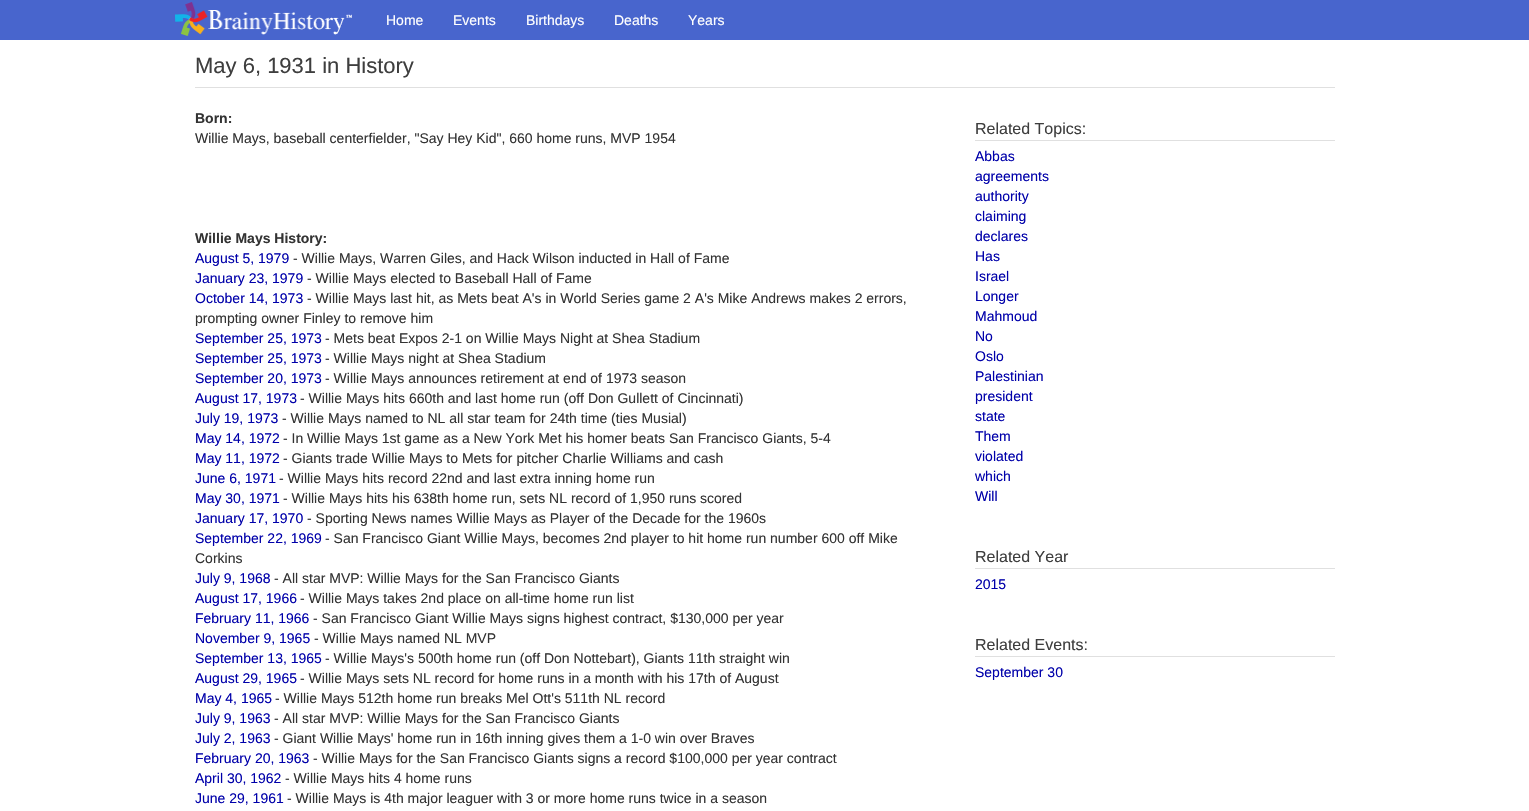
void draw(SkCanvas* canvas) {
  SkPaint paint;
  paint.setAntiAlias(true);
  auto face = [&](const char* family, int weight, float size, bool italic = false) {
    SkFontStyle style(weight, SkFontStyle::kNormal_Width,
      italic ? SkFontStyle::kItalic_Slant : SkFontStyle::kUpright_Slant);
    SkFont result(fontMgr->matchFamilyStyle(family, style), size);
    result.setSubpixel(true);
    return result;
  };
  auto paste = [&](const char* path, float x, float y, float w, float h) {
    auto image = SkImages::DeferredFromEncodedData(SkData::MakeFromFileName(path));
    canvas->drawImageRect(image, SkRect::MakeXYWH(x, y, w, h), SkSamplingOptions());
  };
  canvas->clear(0xffffffff);
  paint.setColor(0xff4865cd);
  canvas->drawRect(SkRect::MakeXYWH(0, 0, 1529, 40), paint);
  paste("img/1.png", 175, 2, 177, 34);
  {
    const struct { float x, y, w, h; SkColor color; } items[] = {
      {195, 87, 1140, 1, 0xffe0e0e0},
      {975, 140, 360, 1, 0xffe0e0e0},
      {975, 568, 360, 1, 0xffe0e0e0},
      {975, 656, 360, 1, 0xffe0e0e0},
    };
    for (auto [x, y, w, h, color] : items) {
      paint.setColor(color);
      canvas->drawRect(SkRect::MakeXYWH(x, y, w, h), paint);
    }
  }
  auto f0 = face("Liberation Sans", 400, 14);
  paint.setColor(0xffffffff);
  {
    const struct { const char* s; float x, y; } items[] = {
      {"Home", 386, 25},
      {"Events", 453, 25},
      {"Birthdays", 526, 25},
      {"Deaths", 614, 25},
      {"Years", 688, 25},
    };
    for (auto [s, x, y] : items) {
      canvas->drawString(s, x, y, f0, paint);
    }
  }
  auto f1 = face("Liberation Sans", 400, 22);
  paint.setColor(0xff3e3e3e);
  canvas->drawString("May 6, 1931 in History", 195, 73, f1, paint);
  auto f2 = face("Liberation Sans", 700, 14);
  paint.setColor(0xff333333);
  canvas->drawString("Born:", 195, 123, f2, paint);
  canvas->drawString("Willie Mays, baseball centerfielder, \"Say Hey Kid\", 660 home runs, MVP 1954", 195, 143, f0, paint);
  canvas->drawString("Willie Mays History:", 195, 243, f2, paint);
  paint.setColor(0xff0000aa);
  canvas->drawString("August 5, 1979", 195, 263, f0, paint);
  paint.setColor(0xff333333);
  canvas->drawString("- Willie Mays, Warren Giles, and Hack Wilson inducted in Hall of Fame", 293, 263, f0, paint);
  paint.setColor(0xff0000aa);
  canvas->drawString("January 23, 1979", 195, 283, f0, paint);
  paint.setColor(0xff333333);
  canvas->drawString("- Willie Mays elected to Baseball Hall of Fame", 307, 283, f0, paint);
  paint.setColor(0xff0000aa);
  canvas->drawString("October 14, 1973", 195, 303, f0, paint);
  paint.setColor(0xff333333);
  canvas->drawString("- Willie Mays last hit, as Mets beat A's in World Series game 2 A's Mike Andrews makes 2 errors,", 307, 303, f0, paint);
  canvas->drawString("prompting owner Finley to remove him", 195, 323, f0, paint);
  paint.setColor(0xff0000aa);
  canvas->drawString("September 25, 1973", 195, 343, f0, paint);
  paint.setColor(0xff333333);
  canvas->drawString("- Mets beat Expos 2-1 on Willie Mays Night at Shea Stadium", 325, 343, f0, paint);
  paint.setColor(0xff0000aa);
  canvas->drawString("September 25, 1973", 195, 363, f0, paint);
  paint.setColor(0xff333333);
  canvas->drawString("- Willie Mays night at Shea Stadium", 325, 363, f0, paint);
  paint.setColor(0xff0000aa);
  canvas->drawString("September 20, 1973", 195, 383, f0, paint);
  paint.setColor(0xff333333);
  canvas->drawString("- Willie Mays announces retirement at end of 1973 season", 325, 383, f0, paint);
  paint.setColor(0xff0000aa);
  canvas->drawString("August 17, 1973", 195, 403, f0, paint);
  paint.setColor(0xff333333);
  canvas->drawString("- Willie Mays hits 660th and last home run (off Don Gullett of Cincinnati)", 300, 403, f0, paint);
  paint.setColor(0xff0000aa);
  canvas->drawString("July 19, 1973", 195, 423, f0, paint);
  paint.setColor(0xff333333);
  canvas->drawString("- Willie Mays named to NL all star team for 24th time (ties Musial)", 282, 423, f0, paint);
  paint.setColor(0xff0000aa);
  canvas->drawString("May 14, 1972", 195, 443, f0, paint);
  paint.setColor(0xff333333);
  canvas->drawString("- In Willie Mays 1st game as a New York Met his homer beats San Francisco Giants, 5-4", 283, 443, f0, paint);
  paint.setColor(0xff0000aa);
  canvas->drawString("May 11, 1972", 195, 463, f0, paint);
  paint.setColor(0xff333333);
  canvas->drawString("- Giants trade Willie Mays to Mets for pitcher Charlie Williams and cash", 283, 463, f0, paint);
  paint.setColor(0xff0000aa);
  canvas->drawString("June 6, 1971", 195, 483, f0, paint);
  paint.setColor(0xff333333);
  canvas->drawString("- Willie Mays hits record 22nd and last extra inning home run", 279, 483, f0, paint);
  paint.setColor(0xff0000aa);
  canvas->drawString("May 30, 1971", 195, 503, f0, paint);
  paint.setColor(0xff333333);
  canvas->drawString("- Willie Mays hits his 638th home run, sets NL record of 1,950 runs scored", 283, 503, f0, paint);
  paint.setColor(0xff0000aa);
  canvas->drawString("January 17, 1970", 195, 523, f0, paint);
  paint.setColor(0xff333333);
  canvas->drawString("- Sporting News names Willie Mays as Player of the Decade for the 1960s", 307, 523, f0, paint);
  paint.setColor(0xff0000aa);
  canvas->drawString("September 22, 1969", 195, 543, f0, paint);
  paint.setColor(0xff333333);
  canvas->drawString("- San Francisco Giant Willie Mays, becomes 2nd player to hit home run number 600 off Mike", 325, 543, f0, paint);
  canvas->drawString("Corkins", 195, 563, f0, paint);
  paint.setColor(0xff0000aa);
  canvas->drawString("July 9, 1968", 195, 583, f0, paint);
  paint.setColor(0xff333333);
  canvas->drawString("- All star MVP: Willie Mays for the San Francisco Giants", 274, 583, f0, paint);
  paint.setColor(0xff0000aa);
  canvas->drawString("August 17, 1966", 195, 603, f0, paint);
  paint.setColor(0xff333333);
  canvas->drawString("- Willie Mays takes 2nd place on all-time home run list", 300, 603, f0, paint);
  paint.setColor(0xff0000aa);
  canvas->drawString("February 11, 1966", 195, 623, f0, paint);
  paint.setColor(0xff333333);
  canvas->drawString("- San Francisco Giant Willie Mays signs highest contract, $130,000 per year", 313, 623, f0, paint);
  paint.setColor(0xff0000aa);
  canvas->drawString("November 9, 1965", 195, 643, f0, paint);
  paint.setColor(0xff333333);
  canvas->drawString("- Willie Mays named NL MVP", 314, 643, f0, paint);
  paint.setColor(0xff0000aa);
  canvas->drawString("September 13, 1965", 195, 663, f0, paint);
  paint.setColor(0xff333333);
  canvas->drawString("- Willie Mays's 500th home run (off Don Nottebart), Giants 11th straight win", 325, 663, f0, paint);
  paint.setColor(0xff0000aa);
  canvas->drawString("August 29, 1965", 195, 683, f0, paint);
  paint.setColor(0xff333333);
  canvas->drawString("- Willie Mays sets NL record for home runs in a month with his 17th of August", 300, 683, f0, paint);
  paint.setColor(0xff0000aa);
  canvas->drawString("May 4, 1965", 195, 703, f0, paint);
  paint.setColor(0xff333333);
  canvas->drawString("- Willie Mays 512th home run breaks Mel Ott's 511th NL record", 275, 703, f0, paint);
  paint.setColor(0xff0000aa);
  canvas->drawString("July 9, 1963", 195, 723, f0, paint);
  paint.setColor(0xff333333);
  canvas->drawString("- All star MVP: Willie Mays for the San Francisco Giants", 274, 723, f0, paint);
  paint.setColor(0xff0000aa);
  canvas->drawString("July 2, 1963", 195, 743, f0, paint);
  paint.setColor(0xff333333);
  canvas->drawString("- Giant Willie Mays' home run in 16th inning gives them a 1-0 win over Braves", 274, 743, f0, paint);
  paint.setColor(0xff0000aa);
  canvas->drawString("February 20, 1963", 195, 763, f0, paint);
  paint.setColor(0xff333333);
  canvas->drawString("- Willie Mays for the San Francisco Giants signs a record $100,000 per year contract", 313, 763, f0, paint);
  paint.setColor(0xff0000aa);
  canvas->drawString("April 30, 1962", 195, 783, f0, paint);
  paint.setColor(0xff333333);
  canvas->drawString("- Willie Mays hits 4 home runs", 285, 783, f0, paint);
  paint.setColor(0xff0000aa);
  canvas->drawString("June 29, 1961", 195, 803, f0, paint);
  paint.setColor(0xff333333);
  canvas->drawString("- Willie Mays is 4th major leaguer with 3 or more home runs twice in a season", 287, 803, f0, paint);
  auto f3 = face("Liberation Sans", 400, 16);
  paint.setColor(0xff3e3e3e);
  canvas->drawString("Related Topics:", 975, 134, f3, paint);
  paint.setColor(0xff0000aa);
  {
    const struct { const char* s; float x, y; } items[] = {
      {"Abbas", 975, 161},
      {"agreements", 975, 181},
      {"authority", 975, 201},
      {"claiming", 975, 221},
      {"declares", 975, 241},
      {"Has", 975, 261},
      {"Israel", 975, 281},
      {"Longer", 975, 301},
      {"Mahmoud", 975, 321},
      {"No", 975, 341},
      {"Oslo", 975, 361},
      {"Palestinian", 975, 381},
      {"president", 975, 401},
      {"state", 975, 421},
      {"Them", 975, 441},
      {"violated", 975, 461},
      {"which", 975, 481},
      {"Will", 975, 501},
    };
    for (auto [s, x, y] : items) {
      canvas->drawString(s, x, y, f0, paint);
    }
  }
  paint.setColor(0xff3e3e3e);
  canvas->drawString("Related Year", 975, 562, f3, paint);
  paint.setColor(0xff0000aa);
  canvas->drawString("2015", 975, 589, f0, paint);
  paint.setColor(0xff3e3e3e);
  canvas->drawString("Related Events:", 975, 650, f3, paint);
  paint.setColor(0xff0000aa);
  canvas->drawString("September 30", 975, 677, f0, paint);
}
